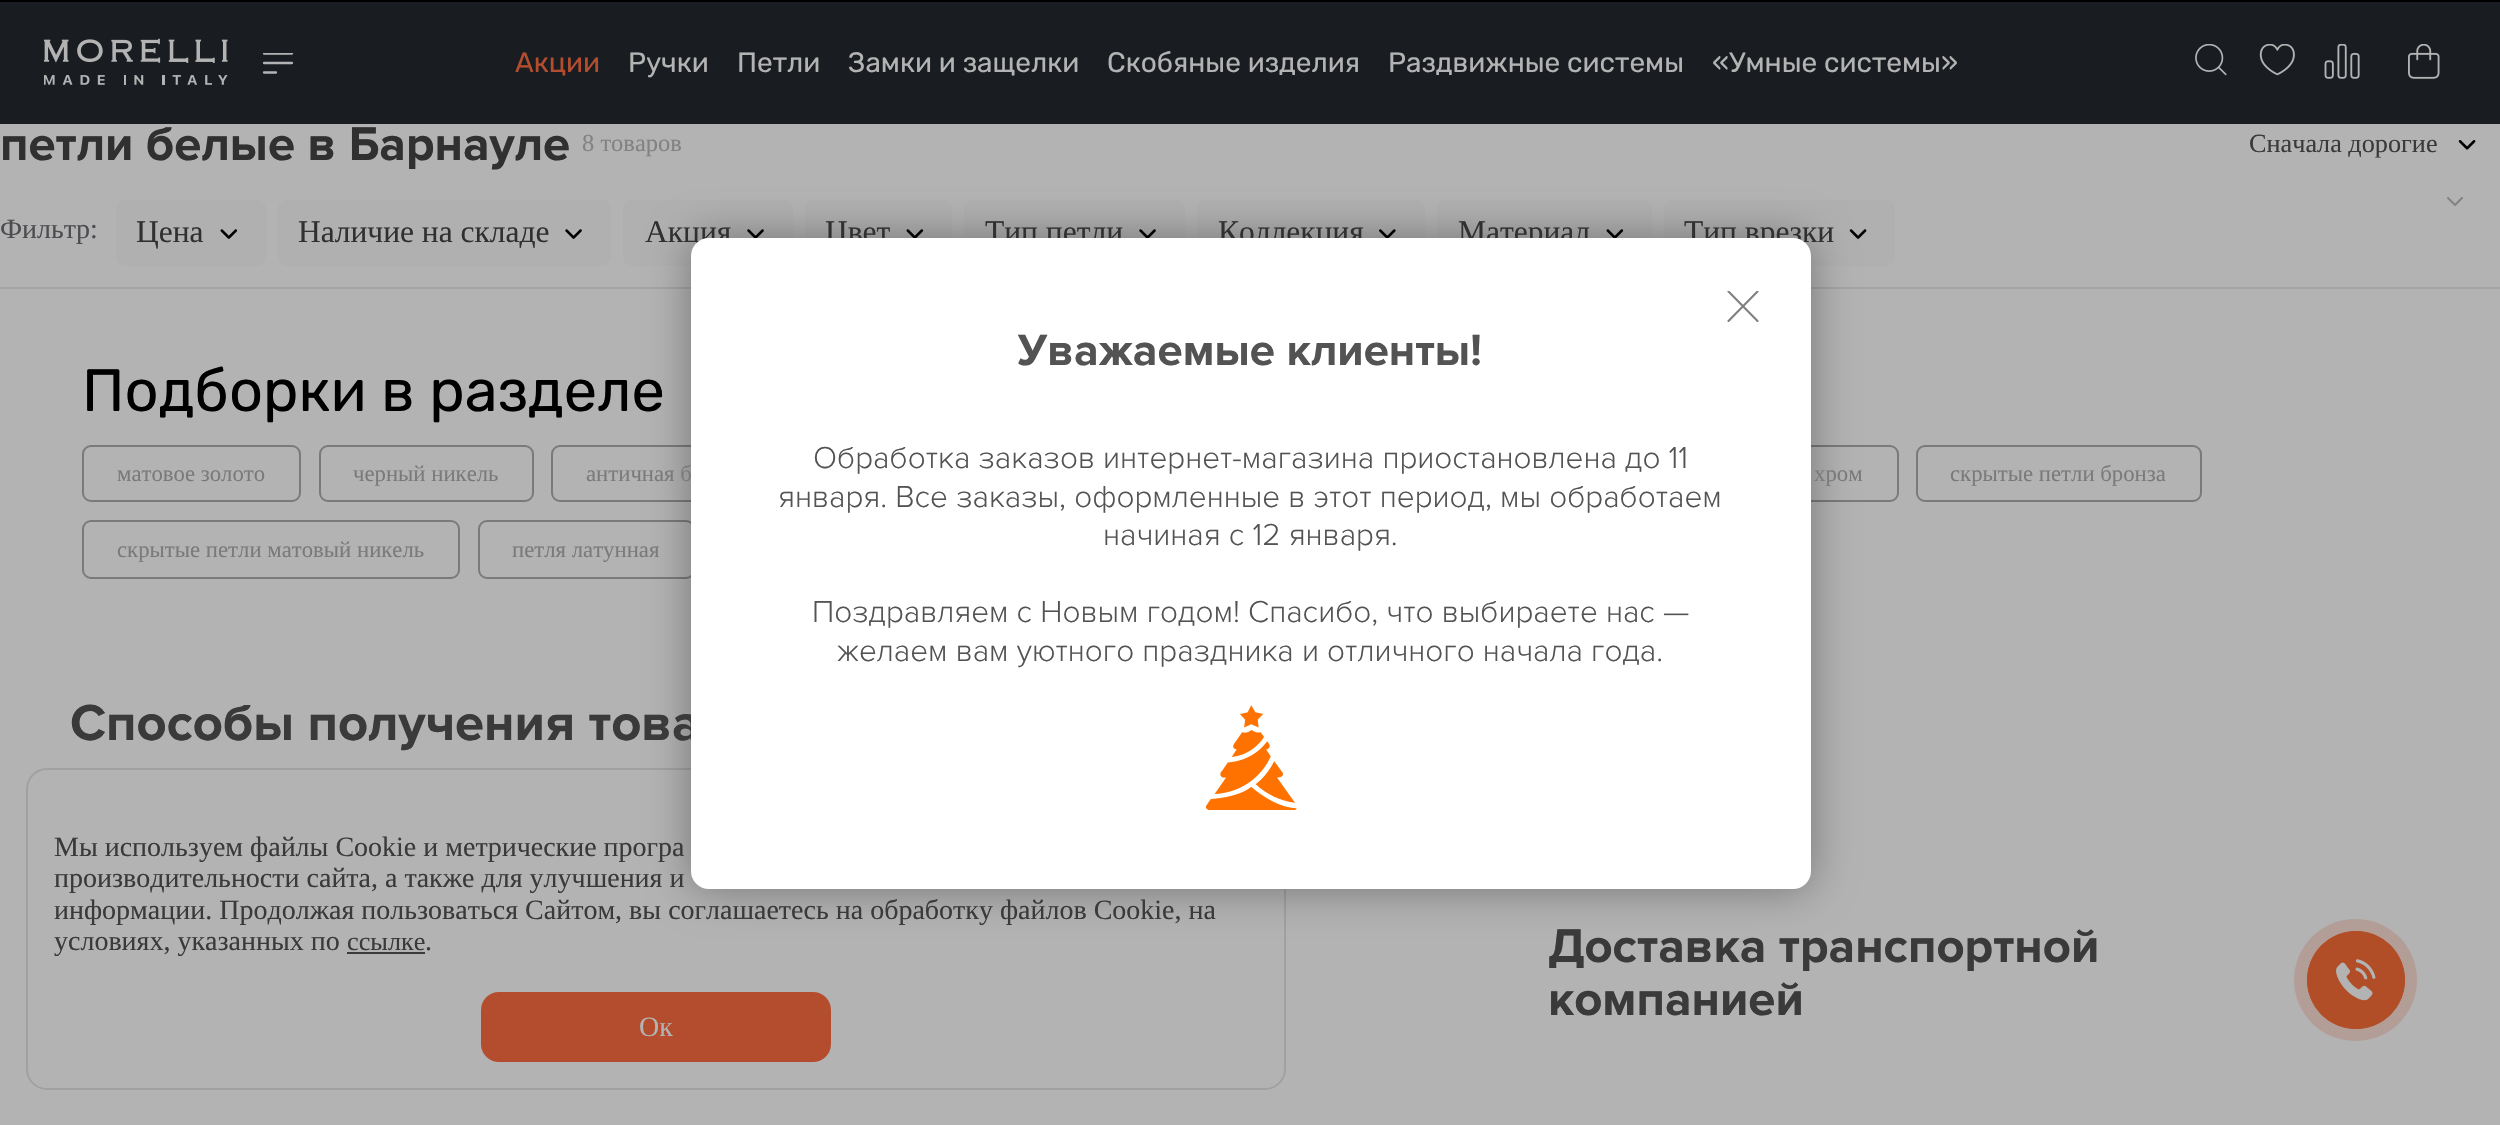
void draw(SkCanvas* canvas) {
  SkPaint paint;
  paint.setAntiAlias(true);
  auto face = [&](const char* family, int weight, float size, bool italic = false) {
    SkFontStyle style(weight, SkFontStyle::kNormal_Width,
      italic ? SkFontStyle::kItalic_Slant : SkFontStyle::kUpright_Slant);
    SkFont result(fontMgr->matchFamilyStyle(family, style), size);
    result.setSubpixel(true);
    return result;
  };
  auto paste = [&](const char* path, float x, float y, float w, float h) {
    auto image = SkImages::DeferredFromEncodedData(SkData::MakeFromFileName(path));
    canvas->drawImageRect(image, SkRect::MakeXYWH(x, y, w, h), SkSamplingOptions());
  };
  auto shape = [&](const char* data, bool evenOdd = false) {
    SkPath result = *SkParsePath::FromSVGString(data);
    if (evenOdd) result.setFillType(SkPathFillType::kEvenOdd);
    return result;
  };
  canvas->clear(0xffb3b3b3);
  paint.setColor(0xff191d22);
  canvas->drawRect(SkRect::MakeXYWH(0, 2, 2500, 122), paint);
  paint.setColor(0xff000000);
  canvas->drawRect(SkRect::MakeXYWH(0, 0, 2500, 2), paint);
  paste("img/1.png", 44, 38, 184, 47);
  canvas->save();
  canvas->clipRect(SkRect::MakeXYWH(263, 53, 31, 22));
  paint.setStroke(true);
  paint.setStrokeWidth(2.3f);
  paint.setStrokeCap(SkPaint::kRound_Cap);
  paint.setColor(0xffb3b3b3);
  canvas->drawPath(shape("M264 53.5H292"), paint);
  canvas->restore();
  canvas->drawPath(shape("M264 63H292M264 72.5H276"), paint);
  paste("img/2.png", 2195, 44, 32, 32);
  paste("img/3.png", 2259, 44, 36, 32);
  paste("img/4.png", 2324, 44, 36, 35);
  paste("img/5.png", 2408, 44, 32, 35);
  paint.setStroke(false);
  paint.setColor(0xffa4a4a4);
  canvas->drawRect(SkRect::MakeXYWH(0, 287, 2500, 2), paint);
  paste("img/6.png", 2458, 140, 18, 10);
  paint.setStroke(true);
  paint.setStrokeWidth(2.1f);
  paint.setStrokeJoin(SkPaint::kRound_Join);
  paint.setColor(0xff838383);
  canvas->drawPath(shape("M2448 198L2455 205L2462 198"), paint);
  paint.setStroke(false);
  paint.setColor(0xffb0b0b0);
  canvas->drawRoundRect(SkRect::MakeXYWH(116, 200, 150, 66), 9, 9, paint);
  paste("img/7.png", 220, 229, 18, 10);
  canvas->drawRoundRect(SkRect::MakeXYWH(278, 200, 333, 66), 9, 9, paint);
  paste("img/8.png", 565, 229, 17, 10);
  canvas->drawRoundRect(SkRect::MakeXYWH(623, 200, 170, 66), 9, 9, paint);
  paste("img/9.png", 747, 229, 17, 9);
  canvas->drawRoundRect(SkRect::MakeXYWH(805, 200, 147, 66), 9, 9, paint);
  paste("img/10.png", 906, 229, 18, 9);
  canvas->drawRoundRect(SkRect::MakeXYWH(964, 200, 221, 66), 9, 9, paint);
  paste("img/9.png", 1139, 229, 17, 9);
  canvas->drawRoundRect(SkRect::MakeXYWH(1197, 200, 228, 66), 9, 9, paint);
  paste("img/11.png", 1379, 229, 17, 9);
  canvas->drawRoundRect(SkRect::MakeXYWH(1437, 200, 215, 66), 9, 9, paint);
  paste("img/10.png", 1606, 229, 18, 9);
  canvas->drawRoundRect(SkRect::MakeXYWH(1664, 200, 231, 66), 9, 9, paint);
  paste("img/12.png", 1849, 229, 18, 10);
  paint.setStroke(true);
  paint.setStrokeWidth(2);
  paint.setStrokeCap(SkPaint::kButt_Cap);
  paint.setStrokeJoin(SkPaint::kMiter_Join);
  paint.setColor(0xff7a7a7a);
  canvas->drawRoundRect(SkRect::MakeXYWH(83, 446, 217, 55), 8, 8, paint);
  canvas->drawRoundRect(SkRect::MakeXYWH(320, 446, 213, 55), 8, 8, paint);
  canvas->drawRoundRect(SkRect::MakeXYWH(552, 446, 438, 55), 8, 8, paint);
  canvas->drawRoundRect(SkRect::MakeXYWH(1541, 446, 357, 55), 8, 8, paint);
  canvas->drawRoundRect(SkRect::MakeXYWH(1917, 446, 284, 55), 8, 8, paint);
  canvas->drawRoundRect(SkRect::MakeXYWH(83, 521, 376, 57), 8, 8, paint);
  canvas->drawRoundRect(SkRect::MakeXYWH(479, 521, 215, 57), 8, 8, paint);
  paint.setColor(0xffa1a1a1);
  canvas->drawRoundRect(SkRect::MakeXYWH(27, 769, 1258, 320), 20, 20, paint);
  paint.setStroke(false);
  paint.setColor(0x59000000);
  paint.setMaskFilter(SkMaskFilter::MakeBlur(kNormal_SkBlurStyle, 22));
  canvas->drawRoundRect(SkRect::MakeXYWH(691, 238, 1120, 651), 18, 18, paint);
  paint.setMaskFilter(nullptr);
  paint.setColor(0xff3a3a3a);
  canvas->drawRect(SkRect::MakeXYWH(347, 952, 78, 2), paint);
  paint.setColor(0xffb34d2d);
  canvas->drawRoundRect(SkRect::MakeXYWH(481, 992, 350, 70), 18, 18, paint);
  paint.setColor(0xffb39e97);
  canvas->drawRoundRect(SkRect::MakeXYWH(2294, 919, 123, 122), 61, 61, paint);
  paint.setStroke(true);
  paint.setStrokeWidth(1);
  paint.setColor(0xffb14e27);
  canvas->drawCircle(2356, 980, 48.5f, paint);
  paint.setStroke(false);
  canvas->drawCircle(2356, 980, 49, paint);
  paste("img/14.png", 2336, 959, 40, 42);
  auto f0 = face("Rubik", 400, 28);
  paint.setColor(0xffb34d2d);
  canvas->drawString("Акции", 515, 72, f0, paint);
  paint.setColor(0xffb3b3b3);
  {
    const struct { const char* s; float x, y; } items[] = {
      {"Ручки", 628, 72},
      {"Петли", 737, 72},
      {"Замки и защелки", 848, 72},
      {"Скобяные изделия", 1107, 72},
      {"Раздвижные системы", 1388, 72},
      {"«Умные системы»", 1712, 72},
    };
    for (auto [s, x, y] : items) {
      canvas->drawString(s, x, y, f0, paint);
    }
  }
  auto f1 = face("Proxima Nova", 700, 49);
  paint.setColor(0xff303030);
  canvas->drawString("петли белые в Барнауле", 0, 160, f1, paint);
  auto f2 = face("Liberation Serif", 400, 24.5f);
  paint.setColor(0xff828282);
  canvas->drawString("8 товаров", 582, 151, f2, paint);
  auto f3 = face("Liberation Serif", 400, 26.25f);
  paint.setColor(0xff3a3a3a);
  canvas->drawString("Сначала дорогие", 2249, 152, f3, paint);
  auto f4 = face("Liberation Serif", 400, 28);
  paint.setColor(0xff4d4d51);
  canvas->drawString("Фильтр:", 0, 238, f4, paint);
  auto f5 = face("Liberation Serif", 400, 31.5f);
  paint.setColor(0xff303030);
  {
    const struct { const char* s; float x, y; } items[] = {
      {"Цена", 136, 242},
      {"Наличие на складе", 298, 242},
      {"Акция", 645, 242},
      {"Цвет", 825, 242},
      {"Тип петли", 985, 242},
      {"Коллекция", 1218, 242},
      {"Материал", 1458, 242},
      {"Тип врезки", 1684, 242},
    };
    for (auto [s, x, y] : items) {
      canvas->drawString(s, x, y, f5, paint);
    }
  }
  auto f6 = face("Rubik", 400, 59.5f);
  paint.setColor(0xff000000);
  canvas->drawString("Подборки в разделе", 82, 411, f6, paint);
  auto f7 = face("Liberation Serif", 400, 22.75f);
  paint.setColor(0xff7a7a7a);
  {
    const struct { const char* s; float x, y; } items[] = {
      {"матовое золото", 117, 481},
      {"черный никель", 353, 481},
      {"античная б", 586, 481},
      {"хром", 1814, 481},
      {"скрытые петли бронза", 1950, 481},
      {"скрытые петли матовый никель", 117, 557},
      {"петля латунная", 512, 557},
    };
    for (auto [s, x, y] : items) {
      canvas->drawString(s, x, y, f7, paint);
    }
  }
  auto f8 = face("Proxima Nova", 700, 52.5f);
  paint.setColor(0xff3a3a3a);
  canvas->drawString("Способы получения това", 70, 740, f8, paint);
  paint.setColor(0xffffffff);
  canvas->drawRoundRect(SkRect::MakeXYWH(691, 238, 1120, 651), 18, 18, paint);
  canvas->save();
  canvas->clipRect(SkRect::MakeXYWH(1727, 291, 32, 31));
  paint.setStroke(true);
  paint.setStrokeWidth(2.1f);
  paint.setStrokeCap(SkPaint::kRound_Cap);
  paint.setStrokeJoin(SkPaint::kRound_Join);
  paint.setColor(0xff7f8080);
  canvas->drawPath(shape("M1728.5 291.5L1757.5 321M1757.5 291.5L1728.5 321"), paint);
  canvas->restore();
  paste("img/13.png", 1205, 705, 92, 105);
  auto f9 = face("Proxima Nova", 300, 31.5f);
  paint.setStroke(false);
  paint.setColor(0xff535353);
  {
    const struct { const char* s; float x, y; } items[] = {
      {"желаем вам уютного праздника и отличного начала года.", 837, 661},
      {"Поздравляем с Новым годом! Спасибо, что выбираете нас —", 812, 622},
      {"начиная с 12 января.", 1103, 545},
      {"января. Все заказы, оформленные в этот период, мы обработаем", 778, 507},
      {"Обработка заказов интернет-магазина приостановлена до 11", 813, 468},
    };
    for (auto [s, x, y] : items) {
      canvas->drawString(s, x, y, f9, paint);
    }
  }
  auto f10 = face("Proxima Nova", 700, 45.5f);
  canvas->drawString("Уважаемые клиенты!", 1018, 365, f10, paint);
  paint.setColor(0xff3a3a3a);
  canvas->drawString("Доставка транспортной", 1548, 962, f1, paint);
  canvas->drawString("компанией", 1548, 1015, f1, paint);
  {
    const struct { const char* s; float x, y; } items[] = {
      {"Мы используем файлы Cookie и метрические програ", 54, 856},
      {"производительности сайта, а также для улучшения и", 54, 887},
      {"информации. Продолжая пользоваться Сайтом, вы соглашаетесь на обработку файлов Cookie, на", 54, 919},
      {"условиях, указанных по", 54, 950},
    };
    for (auto [s, x, y] : items) {
      canvas->drawString(s, x, y, f4, paint);
    }
  }
  canvas->drawString("ссылке", 347, 950, f3, paint);
  canvas->drawString(".", 425, 950, f4, paint);
  paint.setColor(0xffb3b3b3);
  canvas->drawString("Ок", 639, 1036, f4, paint);
}
